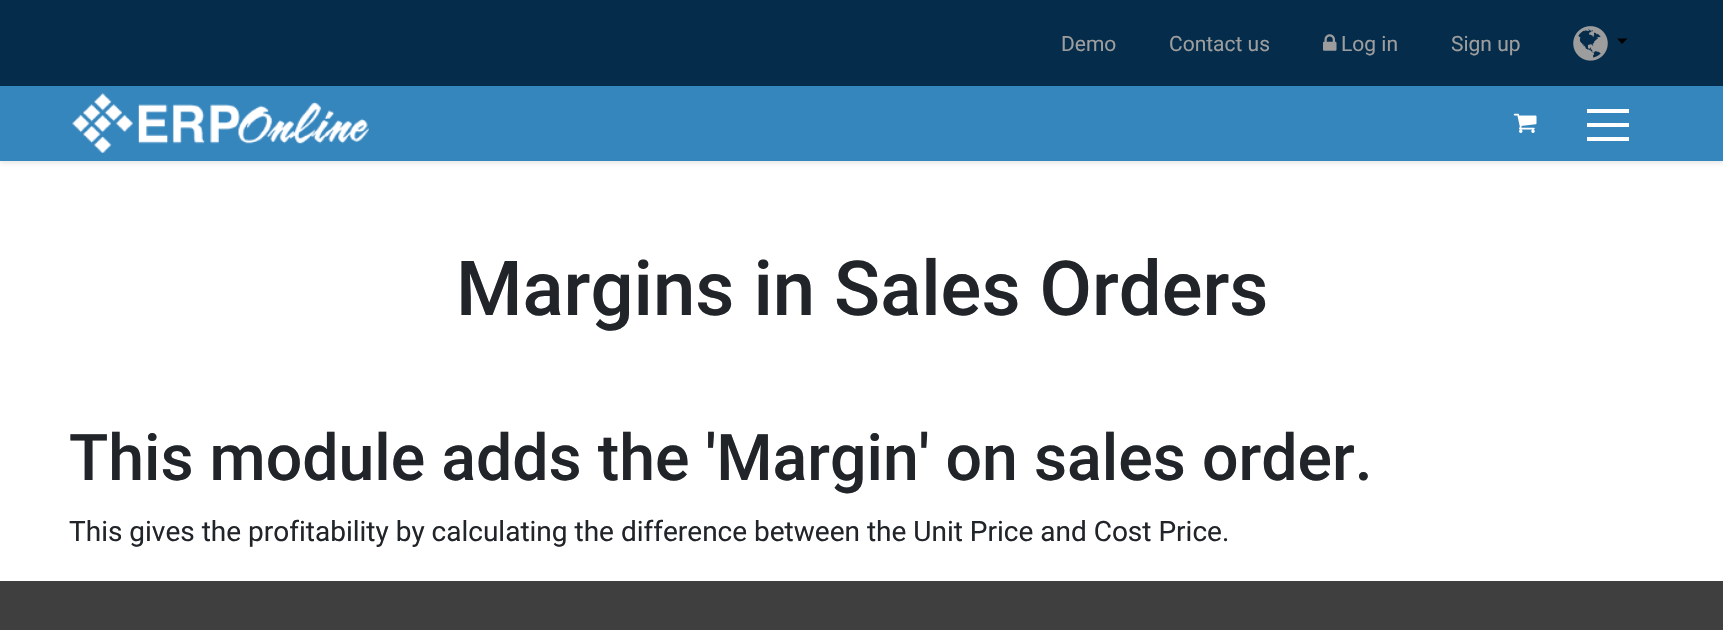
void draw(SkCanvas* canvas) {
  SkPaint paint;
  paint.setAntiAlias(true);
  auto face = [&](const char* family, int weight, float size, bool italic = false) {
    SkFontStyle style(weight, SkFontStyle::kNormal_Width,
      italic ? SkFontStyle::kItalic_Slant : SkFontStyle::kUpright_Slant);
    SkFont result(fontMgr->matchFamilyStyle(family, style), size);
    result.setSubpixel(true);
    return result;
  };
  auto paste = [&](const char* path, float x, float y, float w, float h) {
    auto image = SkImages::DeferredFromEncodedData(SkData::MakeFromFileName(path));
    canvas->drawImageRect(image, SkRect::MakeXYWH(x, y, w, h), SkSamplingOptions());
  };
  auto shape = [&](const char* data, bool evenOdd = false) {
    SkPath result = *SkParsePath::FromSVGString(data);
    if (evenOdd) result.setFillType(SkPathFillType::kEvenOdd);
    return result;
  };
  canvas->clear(0xffffffff);
  paint.setColor(0x1a000000);
  paint.setMaskFilter(SkMaskFilter::MakeBlur(kNormal_SkBlurStyle, 2.5f));
  canvas->drawRect(SkRect::MakeXYWH(0, 88, 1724, 75), paint);
  paint.setMaskFilter(nullptr);
  paint.setColor(0xff052d4b);
  canvas->drawRect(SkRect::MakeXYWH(0, 0, 1723, 86), paint);
  paste("img/1.png", 1323, 34, 14, 17);
  paste("img/2.png", 1573, 26, 35, 35);
  paint.setColor(0xff000000);
  canvas->drawPath(shape("M1617 38.5H1627.5L1622 44Z"), paint);
  paint.setColor(0xff3686be);
  canvas->drawRect(SkRect::MakeXYWH(0, 86, 1723, 75), paint);
  paste("img/3.png", 72, 93, 297, 60);
  paste("img/4.png", 1513, 113, 24, 20);
  {
    const struct { float x, y, w, h; SkColor color; } items[] = {
      {1587, 137, 42, 4, 0xffffffff},
      {1587, 109, 42, 4, 0xffffffff},
      {1587, 123, 42, 4, 0xffffffff},
      {0, 581, 1723, 49, 0xff3f3f3f},
    };
    for (auto [x, y, w, h, color] : items) {
      paint.setColor(color);
      canvas->drawRect(SkRect::MakeXYWH(x, y, w, h), paint);
    }
  }
  auto f0 = face("Roboto", 400, 21);
  paint.setColor(0xff9d9d9d);
  {
    const struct { const char* s; float x, y; } items[] = {
      {"Demo", 1061, 51},
      {"Contact us", 1169, 51},
      {"Log in", 1341, 51},
      {"Sign up", 1451, 51},
    };
    for (auto [s, x, y] : items) {
      canvas->drawString(s, x, y, f0, paint);
    }
  }
  auto f1 = face("Roboto", 500, 76.1f);
  paint.setColor(0xff212529);
  canvas->drawString("Margins in Sales Orders", 456, 315, f1, paint);
  auto f2 = face("Roboto", 500, 64.4f);
  canvas->drawString("This module adds the 'Margin' on sales order.", 69, 480, f2, paint);
  auto f3 = face("Roboto", 400, 28);
  canvas->drawString("This gives the profitability by calculating the difference between the Unit Price and Cost Price.", 69, 541, f3, paint);
}
